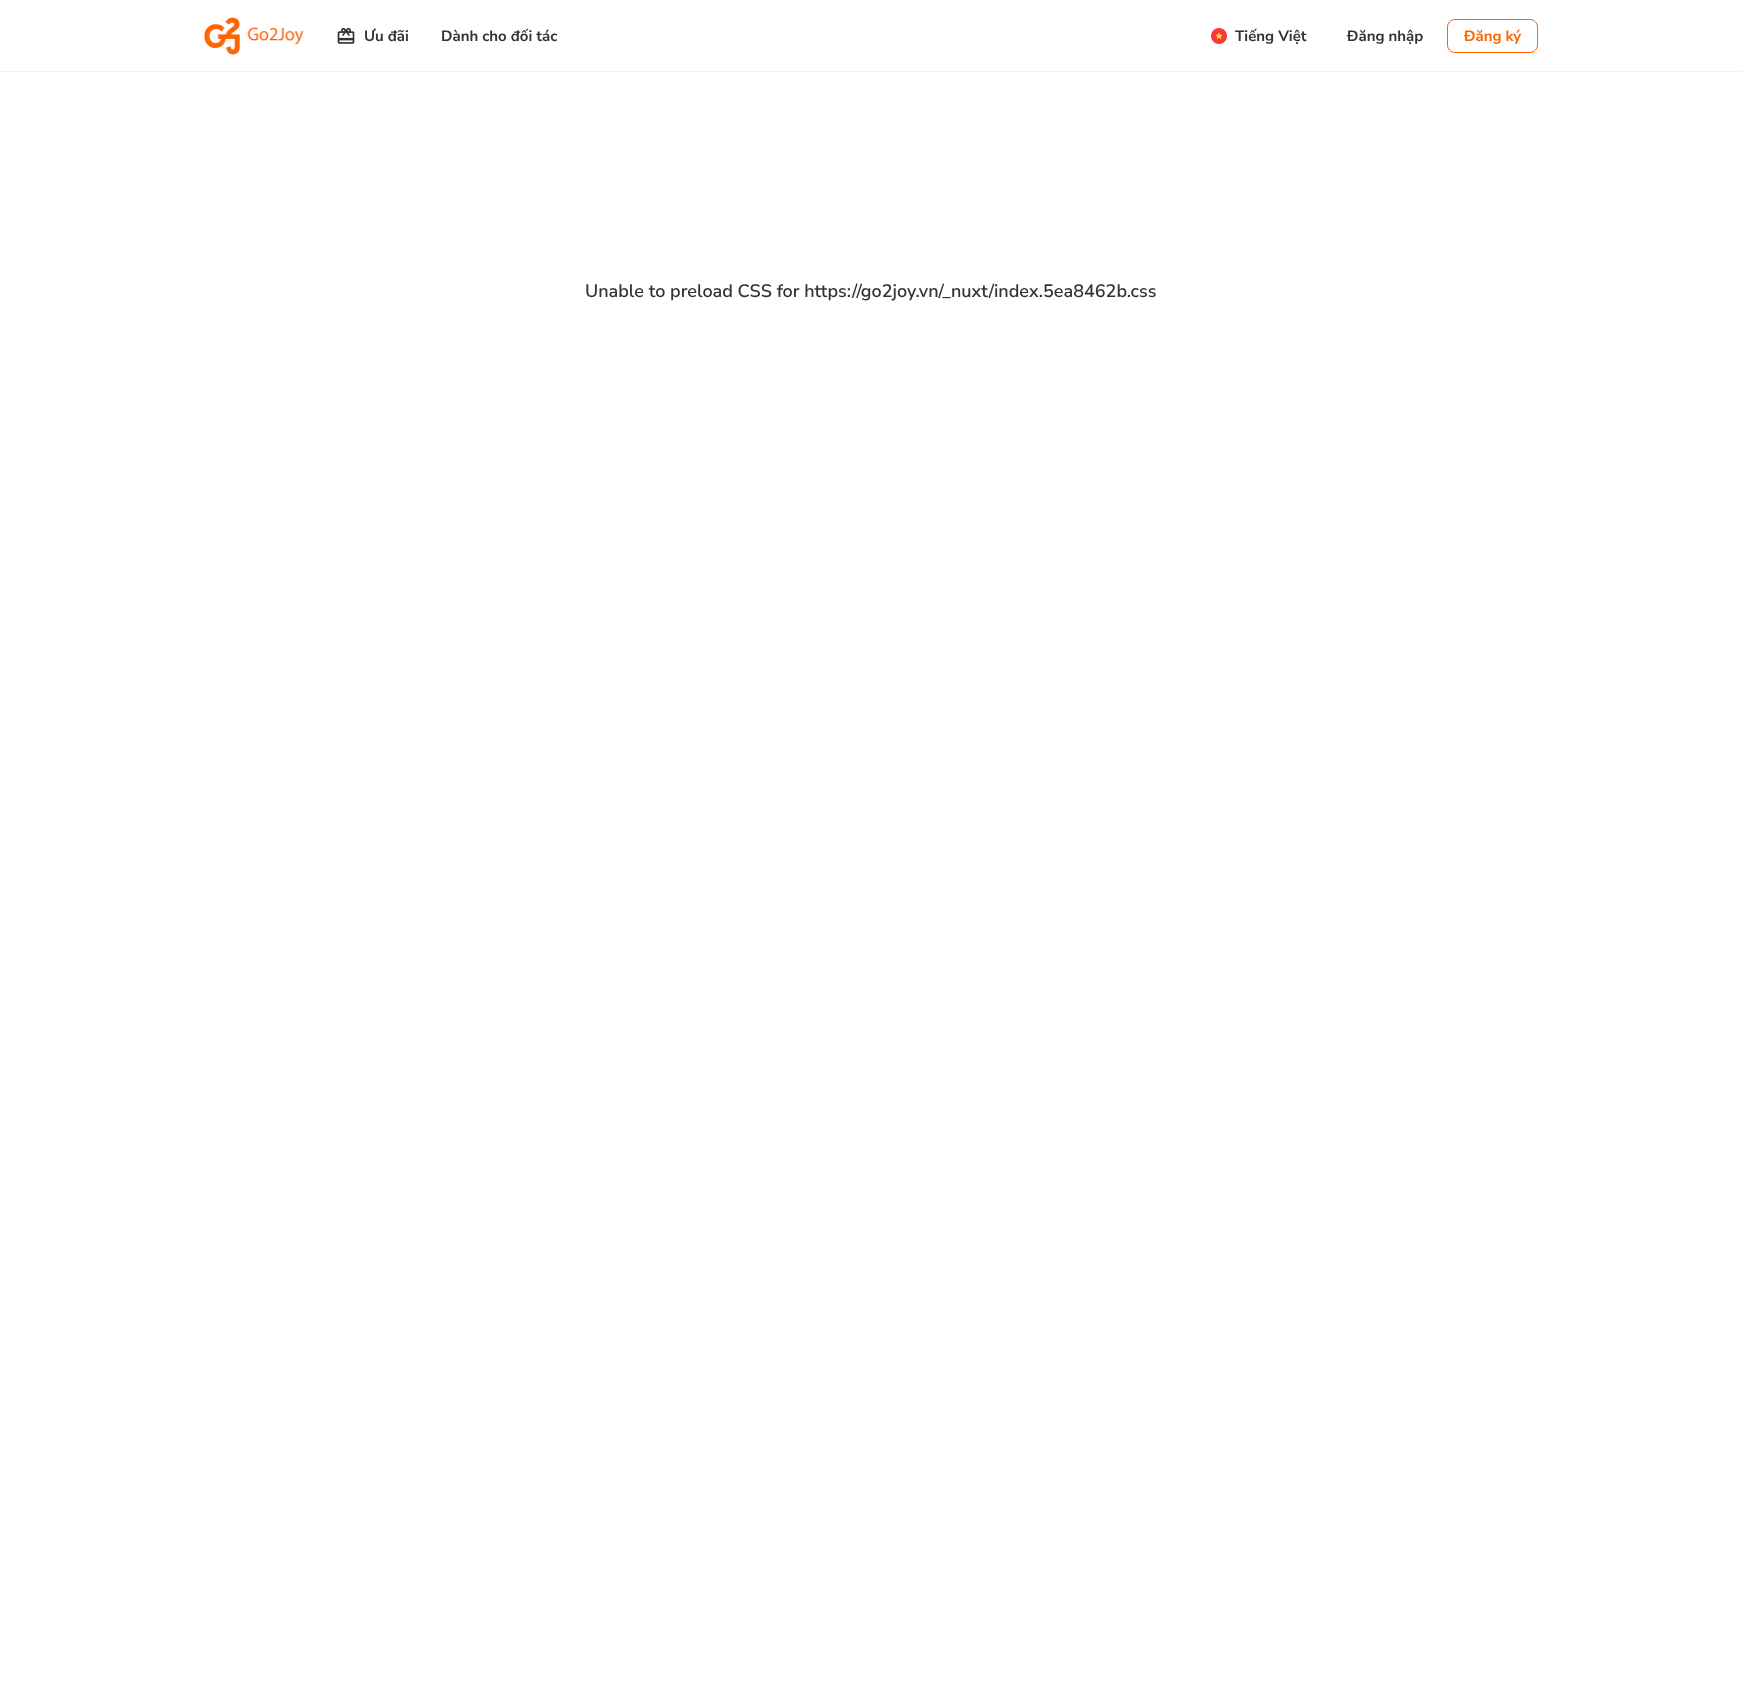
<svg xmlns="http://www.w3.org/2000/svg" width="1742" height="1682">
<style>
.a{font:bold 15px Nunito Sans;fill:#333}
.b{font:bold 15px Nunito Sans;fill:#ff6400}
.c{font:600 18px Nunito Sans;fill:#333}
</style>
<rect width="100%" height="100%" fill="#fff"/>
<path fill="#f2f2f7" d="M0 71h1742v1H0z"/>
<image href="1.png" x="204" y="17" width="100" height="38"/>
<image href="2.png" x="337" y="27" width="18" height="17"/>
<image href="3.png" x="1211" y="28" width="16" height="16"/>
<rect fill="none" stroke="#ff6400" x="1447.5" y="19.5" width="90" height="33" rx="7.5"/>
<text class="a" x="364" y="41">Ưu đãi</text>
<text class="a" x="441" y="41">Dành cho đối tác</text>
<text class="a" x="1235" y="41">Tiếng Việt</text>
<text class="a" x="1347" y="41">Đăng nhập</text>
<text class="b" x="1464" y="41">Đăng ký</text>
<text class="c" x="585" y="297">Unable to preload CSS for https://go2joy.vn/_nuxt/index.5ea8462b.css</text>
</svg>
